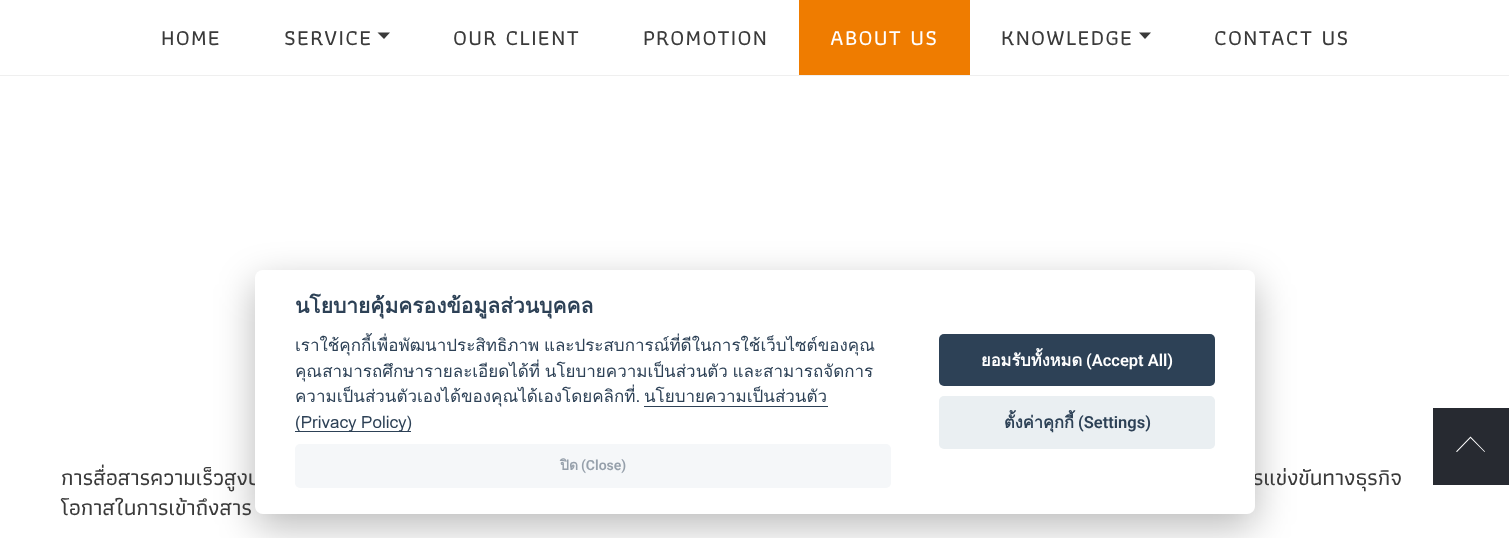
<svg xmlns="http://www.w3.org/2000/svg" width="1509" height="538">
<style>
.a{font:500 22.5px Athiti;letter-spacing:1.25px;fill:#3a3a3a}
.b{font:500 22.5px Athiti;letter-spacing:1.25px;fill:#fff}
.c{font:500 22.5px Athiti;fill:#3a3a3a}
.d{font:bold 21px Loma;fill:#2d4156}
.e{font:17px Loma;fill:#2d4156}
.f{font:bold 14px Loma;fill:#96a0ab}
.g{font:600 14px Roboto;fill:#96a0ab}
.h{font:bold 16.5px Loma;fill:#fff}
.i{font:600 16.5px Roboto;fill:#fff}
.j{font:bold 16.5px Loma;fill:#2d4156}
.k{font:600 16.5px Roboto;fill:#2d4156}
</style>
<rect width="100%" height="100%" fill="#fff"/>
<path fill="#efefef" d="M0 75h1509v1H0z"/>
<path fill="#3a3a3a" d="M377.5 32.5h12.5l-6 6.5z"/>
<path fill="#ef7c00" d="M799 0h171v75H799z"/>
<path fill="#3a3a3a" d="M1139 32.5h12l-6 6.5z"/>
<path fill="#272a31" d="M1433 408h76v77H1433z"/>
<path fill="#fff" d="M1484.5 452l-14-14l-13.5 14l-1-.5l14.5-15l14.5 15z"/>
<rect fill="#02020347" filter="blur(19px)" x="255" y="283" width="1000" height="243" rx="8"/>
<text class="a" x="161" y="45">HOME</text>
<text class="a" x="284" y="45">SERVICE</text>
<text class="a" x="453" y="45">OUR CLIENT</text>
<text class="a" x="643" y="45">PROMOTION</text>
<text class="b" x="830" y="45">ABOUT US</text>
<text class="a" x="1001" y="45">KNOWLEDGE</text>
<text class="a" x="1214" y="45">CONTACT US</text>
<text class="c" x="61" y="485">การสื่อสารความเร็วสูงบ</text>
<text class="c" x="1253" y="485">รแข่งขันทางธุรกิจ</text>
<text class="c" x="61" y="515">โอกาสในการเข้าถึงสาร</text>
<rect fill="#fff" x="255" y="270" width="1000" height="244" rx="8"/>
<text class="d" x="295" y="313">นโยบายคุ้มครองข้อมูลส่วนบุคคล</text>
<text class="e" x="295" y="351" word-spacing="-1">เราใช้คุกกี้เพื่อพัฒนาประสิทธิภาพ และประสบการณ์ที่ดีในการใช้เว็บไซต์ของคุณ</text>
<text class="e" x="295" y="377" word-spacing="-1">คุณสามารถศึกษารายละเอียดได้ที่ นโยบายความเป็นส่วนตัว และสามารถจัดการ</text>
<text class="e" x="295" y="402">ความเป็นส่วนตัวเองได้ของคุณได้เองโดยคลิกที่.</text>
<text class="e" x="644" y="402">นโยบายความเป็นส่วนตัว</text>
<path fill="#2d4156" d="M644 406h184v1H644z"/>
<path fill="#2d4156" d="M295 431h116v1H295z"/>
<text class="e" x="295" y="428" word-spacing="-1">(Privacy Policy)</text>
<rect fill="#f5f7f9" x="295" y="444" width="596" height="44" rx="5"/>
<text class="f" x="560" y="470">ปิด</text>
<text class="g" x="581" y="470">(Close)</text>
<rect fill="#2d4156" x="939" y="334" width="276" height="52" rx="5"/>
<text class="h" x="981" y="366">ยอมรับทั้งหมด</text>
<text class="i" x="1086" y="366">(Accept All)</text>
<rect fill="#eaeff2" x="939" y="396" width="276" height="53" rx="5"/>
<text class="j" x="1004" y="428">ตั้งค่าคุกกี้</text>
<text class="k" x="1078" y="428">(Settings)</text>
</svg>
